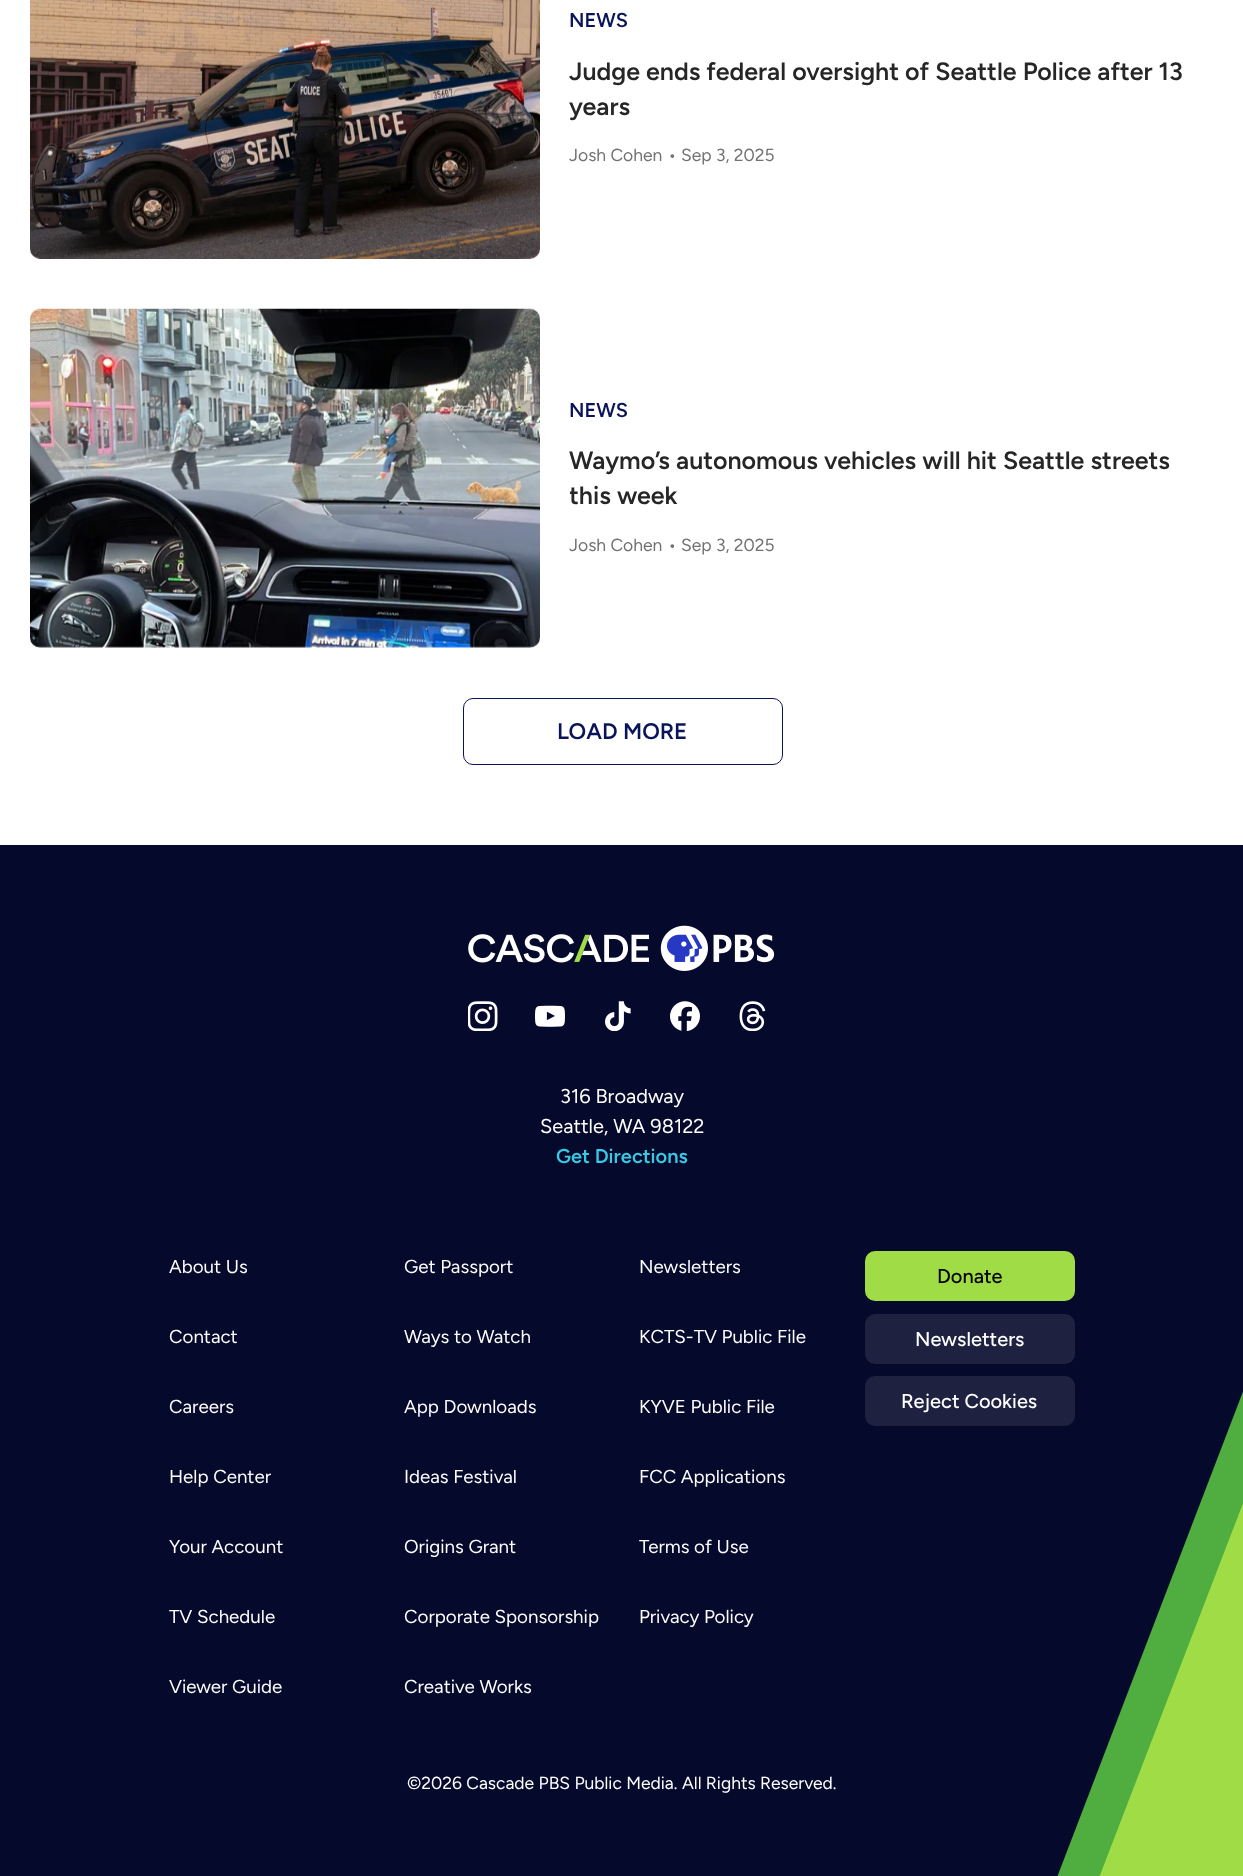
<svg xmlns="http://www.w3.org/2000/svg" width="1243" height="1876">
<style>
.a{font:600 20px Figtree;fill:#0a145a}
.b{font:600 25px Figtree;fill:#262626}
.c{font:17.5px Figtree;fill:#727272}
.d{font:600 22.5px Figtree;fill:#0a145a}
.e{font:20px Figtree;fill:#fff}
.f{font:600 20px Figtree;fill:#39c9e4}
.g{font:18.75px Figtree;fill:#fff}
.h{font:500 20px Figtree;fill:#000}
.i{font:500 20px Figtree;fill:#fff}
.j{font:17.5px Figtree;fill:#fff}
</style>
<defs>
<clipPath id="clip1"><path d="M570 309h644v339H570z"/></clipPath>
</defs>
<rect width="100%" height="100%" fill="#fff"/>
<image href="1.png" x="30" y="0" width="510" height="259"/>
<image href="2.png" x="30" y="308" width="510" height="340"/>
<rect fill="none" stroke="#0a145a" x="463.5" y="698.5" width="319" height="66" rx="9.5"/>
<path fill="#05092b" d="M0 845h1243v1031H0z"/>
<image href="3.png" x="468" y="925" width="307" height="46"/>
<image href="4.png" x="468" y="1001" width="30" height="30"/>
<image href="5.png" x="535" y="1005" width="30" height="22"/>
<image href="6.png" x="605" y="1001" width="26" height="30"/>
<image href="7.png" x="670" y="1001" width="30" height="30"/>
<image href="8.png" x="739" y="1001" width="27" height="30"/>
<rect fill="#9fdc45" x="865" y="1251" width="210" height="50" rx="10"/>
<rect fill="#1e2240" x="865" y="1314" width="210" height="50" rx="10"/>
<path fill="#50ad3f" d="M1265 1334l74 28l-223 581l-73-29z"/>
<rect fill="#1e2240" x="865" y="1376" width="210" height="50" rx="10"/>
<path fill="#9fdc45" d="M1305 1342l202 77l-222 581l-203-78z"/>
<text class="a" x="569" y="27">NEWS</text>
<text class="b" x="569" y="80">Judge ends federal oversight of Seattle Police after 13</text>
<text class="b" x="569" y="115">years</text>
<text class="c" x="569" y="161">Josh Cohen</text>
<text class="c" x="668" y="161">•</text>
<text class="c" x="681" y="161">Sep 3, 2025</text>
<text class="a" x="569" y="417">NEWS</text>
<text class="b" x="569" y="469">Waymo’s autonomous vehicles will hit Seattle streets</text>
<g clip-path="url(#clip1)">
<text class="b" x="569" y="504">this week</text>
</g>
<text class="c" x="569" y="551">Josh Cohen</text>
<text class="c" x="668" y="551">•</text>
<text class="c" x="681" y="551">Sep 3, 2025</text>
<text class="d" x="557" y="739">LOAD MORE</text>
<text class="e" x="560" y="1103">316 Broadway</text>
<text class="e" x="540" y="1133">Seattle, WA 98122</text>
<text class="f" x="556" y="1163">Get Directions</text>
<text class="g" x="169" y="1273">About Us</text>
<text class="g" x="404" y="1273">Get Passport</text>
<text class="g" x="639" y="1273">Newsletters</text>
<text class="g" x="169" y="1343">Contact</text>
<text class="g" x="404" y="1343">Ways to Watch</text>
<text class="g" x="639" y="1343">KCTS-TV Public File</text>
<text class="g" x="169" y="1413">Careers</text>
<text class="g" x="404" y="1413">App Downloads</text>
<text class="g" x="639" y="1413">KYVE Public File</text>
<text class="g" x="169" y="1483">Help Center</text>
<text class="g" x="404" y="1483">Ideas Festival</text>
<text class="g" x="639" y="1483">FCC Applications</text>
<text class="g" x="169" y="1553">Your Account</text>
<text class="g" x="404" y="1553">Origins Grant</text>
<text class="g" x="639" y="1553">Terms of Use</text>
<text class="g" x="169" y="1623">TV Schedule</text>
<text class="g" x="404" y="1623">Corporate Sponsorship</text>
<text class="g" x="639" y="1623">Privacy Policy</text>
<text class="g" x="169" y="1693">Viewer Guide</text>
<text class="g" x="404" y="1693">Creative Works</text>
<text class="h" x="937" y="1283">Donate</text>
<text class="i" x="915" y="1346">Newsletters</text>
<text class="i" x="901" y="1408">Reject Cookies</text>
<text class="j" x="407" y="1789">©2026 Cascade PBS Public Media.</text>
<text class="j" x="682" y="1789">All Rights Reserved.</text>
</svg>
